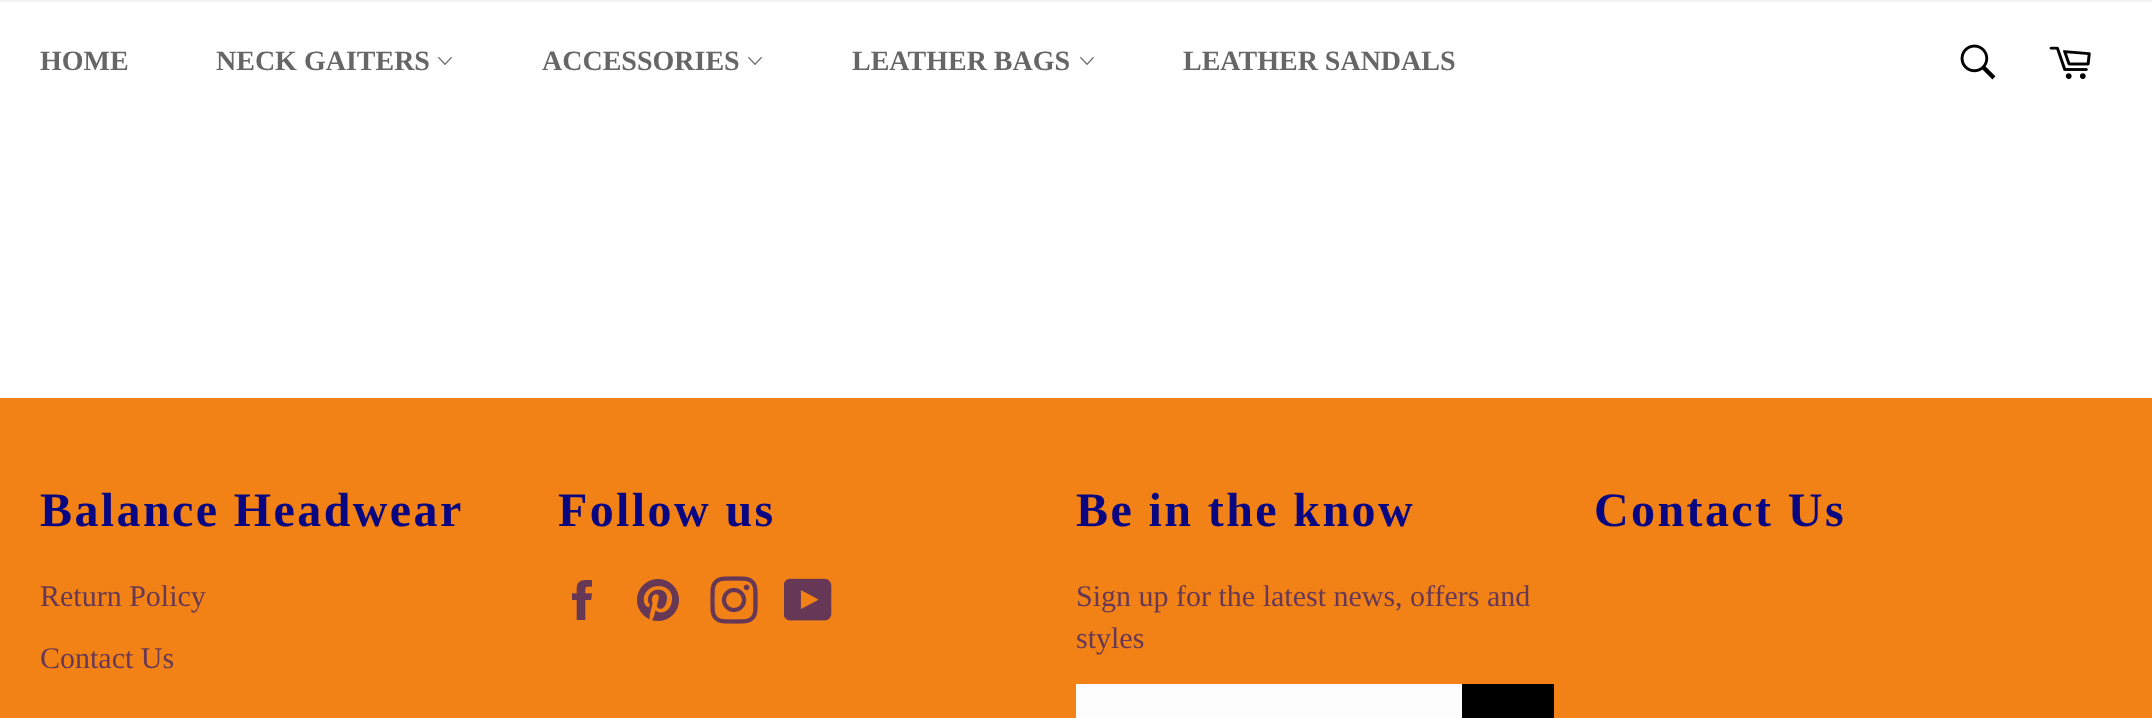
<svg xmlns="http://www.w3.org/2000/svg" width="2152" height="718">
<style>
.a{font:bold 28px Liberation Serif;fill:#666}
.b{font:bold 48px Liberation Serif;letter-spacing:2.4px;fill:#080681}
.c{font:30px Liberation Serif;fill:#663856}
</style>
<rect width="100%" height="100%" fill="#fff"/>
<path fill="#f2f2f2" d="M0 0h2152v2H0z"/>
<image href="1.png" x="438" y="56" width="14" height="9"/>
<image href="1.png" x="748" y="56" width="14" height="9"/>
<image href="1.png" x="1080" y="56" width="14" height="9"/>
<image href="2.png" x="1960" y="44" width="36" height="36"/>
<image href="3.png" x="2049" y="46" width="42" height="33"/>
<path fill="#f28216" d="M0 398h2152v320H0z"/>
<image href="4.png" x="572" y="580" width="20" height="40"/>
<image href="5.png" x="637" y="579" width="42" height="42"/>
<image href="6.png" x="710" y="576" width="48" height="48"/>
<image href="7.png" x="784" y="578" width="48" height="43"/>
<path fill="#fdfdfd" d="M1076 684h386v34H1076z"/>
<path fill="#000" d="M1462 684h92v34H1462z"/>
<text class="a" x="40" y="70">HOME</text>
<text class="a" x="216" y="70">NECK GAITERS</text>
<text class="a" x="542" y="70">ACCESSORIES</text>
<text class="a" x="852" y="70">LEATHER BAGS</text>
<text class="a" x="1183" y="70">LEATHER SANDALS</text>
<text class="b" x="40" y="526">Balance Headwear</text>
<text class="c" x="40" y="606">Return Policy</text>
<text class="c" x="40" y="668">Contact Us</text>
<text class="b" x="558" y="526">Follow us</text>
<text class="b" x="1076" y="526">Be in the know</text>
<text class="c" x="1076" y="606">Sign up for the latest news, offers and</text>
<text class="c" x="1076" y="648">styles</text>
<text class="b" x="1594" y="526">Contact Us</text>
</svg>
